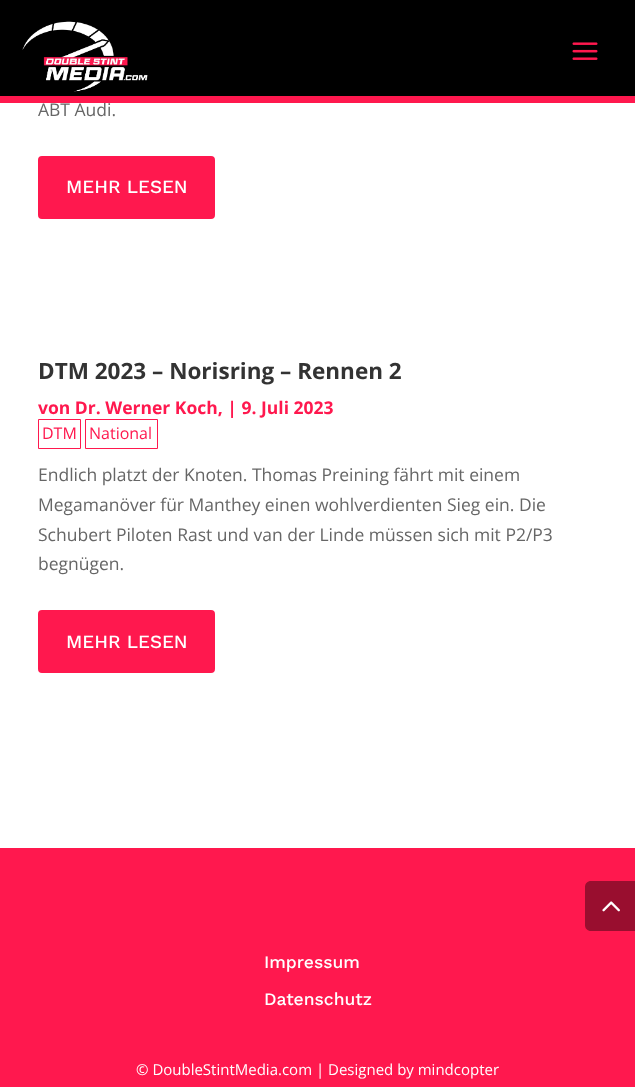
<svg xmlns="http://www.w3.org/2000/svg" width="635" height="1087">
<style>
.a{font:17.5px Open Sans;fill:#666}
.b{font:500 18.75px Work Sans;fill:#fff}
.c{font:bold 22.5px Open Sans;fill:#333}
.d{font:bold 17.5px Open Sans;fill:#ff184e}
.e{font:16px Open Sans;fill:#ff184e}
.f{font:500 17.5px Work Sans;fill:#fff}
.g{font:15px Open Sans;fill:#fff}
</style>
<rect width="100%" height="100%" fill="#fff"/>
<path fill="#000" d="M0 0h635v96H0z"/>
<image href="1.png" x="22" y="21" width="126" height="71"/>
<image href="2.png" x="572" y="42" width="26" height="18"/>
<rect fill="#ff184e" stroke="#ff184e" stroke-width="3" x="39.5" y="157.5" width="174" height="60" rx="2.5"/>
<path fill="none" stroke="#ff184e" d="M38.5 419.5h42v29H38.5z"/>
<path fill="none" stroke="#ff184e" d="M85.5 419.5h72v29H85.5z"/>
<rect fill="#ff184e" stroke="#ff184e" stroke-width="3" x="39.5" y="611.5" width="174" height="60" rx="2.5"/>
<path fill="#ff184e" d="M0 848h635v239H0z"/>
<path fill="#990e2f" d="M591 881h44v50h-44c-3.5 0-6-2.5-6-6v-38c0-3.5 2.5-6 6-6z"/>
<image href="3.png" x="602" y="901" width="18" height="11"/>
<text class="a" x="38" y="116">ABT Audi.</text>
<path fill="#ff184e" d="M0 96h635v7H0z"/>
<text class="b" x="66" y="193">MEHR LESEN</text>
<text class="c" x="38" y="379">DTM 2023 – Norisring – Rennen 2</text>
<text class="d" x="38" y="414">von Dr. Werner Koch, | 9. Juli 2023</text>
<text class="e" x="42" y="439">DTM</text>
<text class="e" x="89" y="439">National</text>
<text class="a" x="38" y="481">Endlich platzt der Knoten. Thomas Preining fährt mit einem</text>
<text class="a" x="38" y="511">Megamanöver für Manthey einen wohlverdienten Sieg ein. Die</text>
<text class="a" x="38" y="541">Schubert Piloten Rast und van der Linde müssen sich mit P2/P3</text>
<text class="a" x="38" y="570">begnügen.</text>
<text class="b" x="66" y="648">MEHR LESEN</text>
<text class="f" x="264" y="968">Impressum</text>
<text class="f" x="264" y="1005">Datenschutz</text>
<text class="g" x="136" y="1075">© DoubleStintMedia.com | Designed by mindcopter</text>
</svg>
